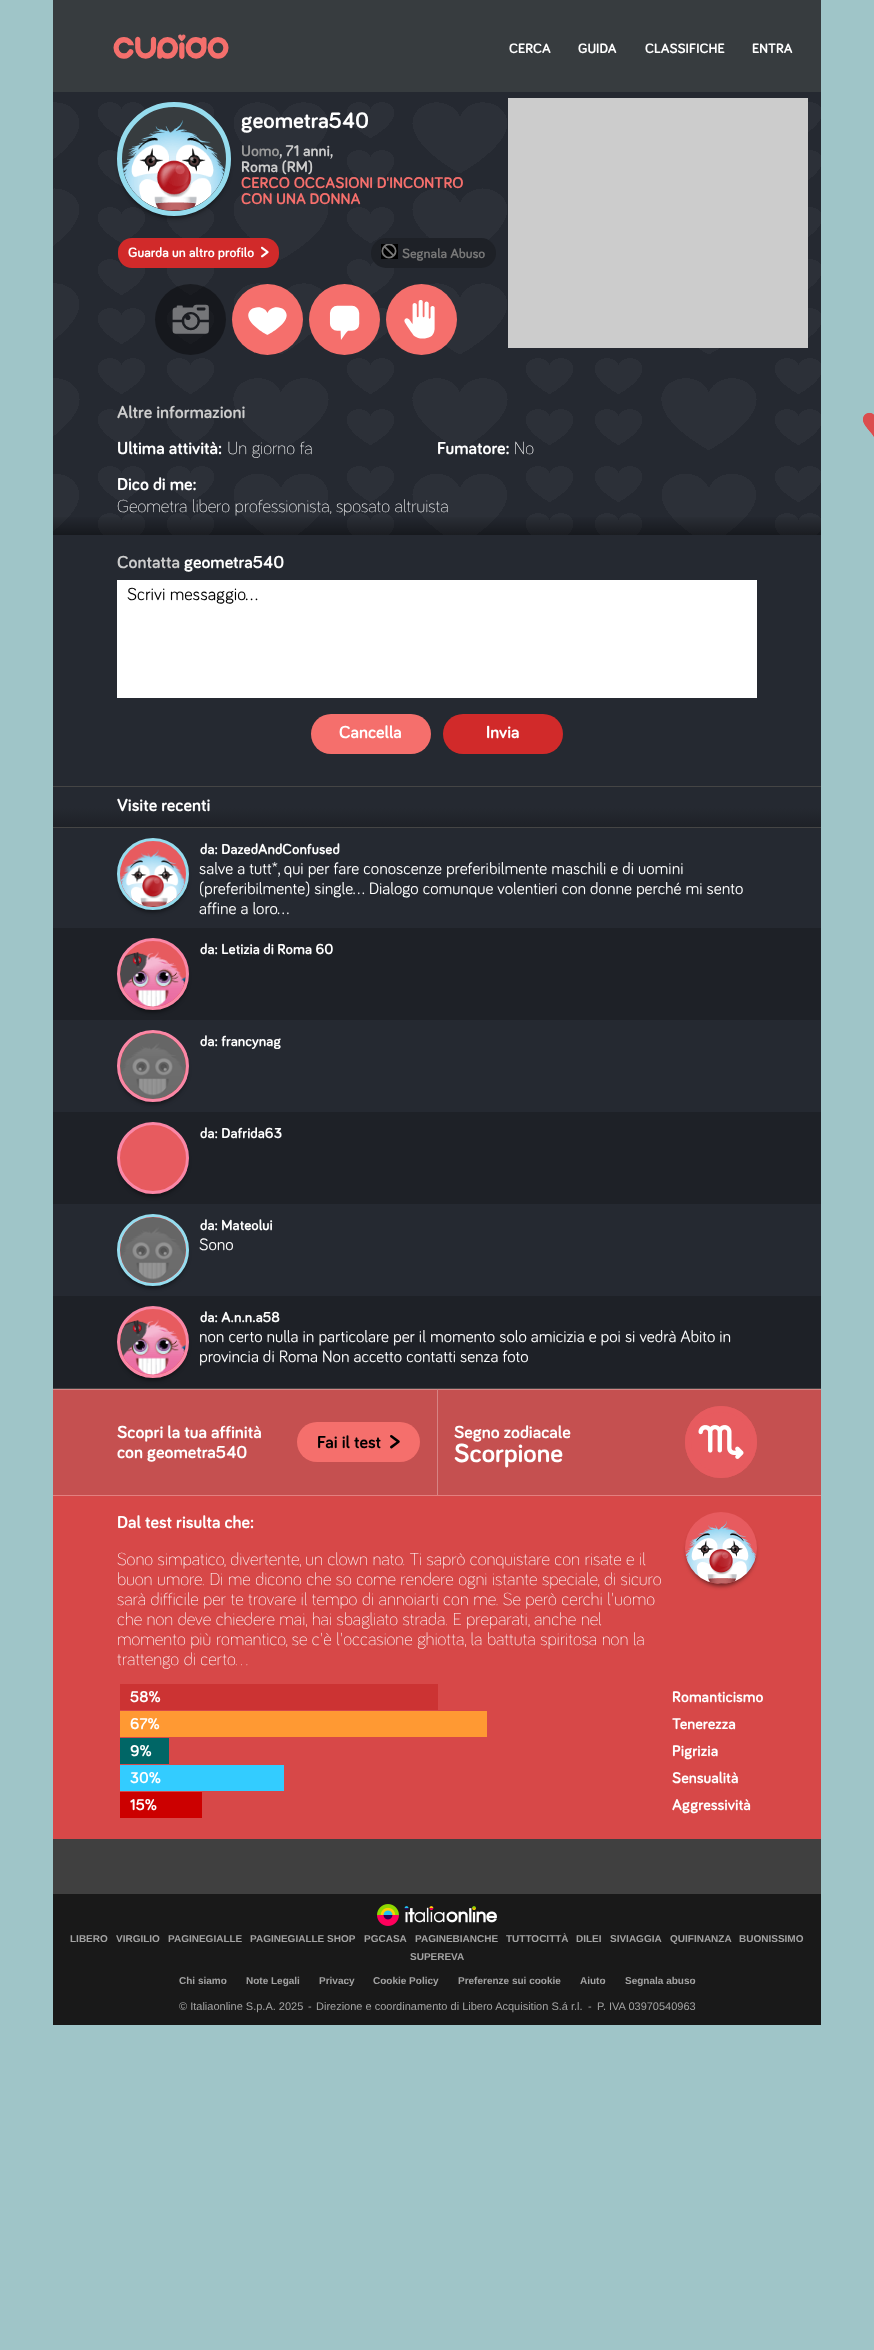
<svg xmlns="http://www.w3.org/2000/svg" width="874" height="2350">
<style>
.a{font:bold 14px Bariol;fill:#fff}
.b{font:bold 23px Bariol;fill:#fff}
.c{font:bold 16px Bariol;fill:#999}
.d{font:bold 16px Bariol;fill:#ccc}
.e{font:bold 16px Bariol;fill:#f56f6c}
.f{font:bold 21px Bariol;fill:#fff}
.g{font:bold 14px Bariol;fill:#787878}
.h{font:bold 18px Bariol;fill:#ccc}
.i{font:bold 18px Bariol;fill:#fff}
.j{font:300 18px Bariol;fill:#fff}
.k{font:18px Bariol;fill:#000}
.l{font:bold 15px Bariol;fill:#fff}
.m{font:17px Bariol;fill:#fff}
.n{font:bold 18px Bariol;fill:#000}
.o{font:bold 27px Bariol;fill:#000}
.p{font:bold 27px Bariol;fill:#fff}
.q{font:bold 16px Bariol;fill:#fff}
.r{font:bold 10px Liberation Sans;fill:#a3a3a3}
.s{font:11px Liberation Sans;fill:#a3a3a3}
</style>
<defs>
<linearGradient id="g1" gradientUnits="userSpaceOnUse" x1="437" y1="515" x2="437" y2="535"><stop offset="0" stop-color="#000" stop-opacity="0"/><stop offset="1" stop-color="#000" stop-opacity="0.4"/></linearGradient>
<linearGradient id="g2" gradientUnits="userSpaceOnUse" x1="437" y1="787" x2="437" y2="827"><stop offset="0.53" stop-color="#252931"/><stop offset="1" stop-color="#1e2127"/></linearGradient>
</defs>
<rect width="100%" height="100%" fill="#9fc5c8"/>
<image href="1.png" x="863" y="412" width="11" height="25"/>
<path fill="#373c3f" d="M53 0h768v92H53z"/>
<image href="2.png" x="113" y="34" width="116" height="25"/>
<image href="3.png" x="53" y="92" width="768" height="443"/>
<rect fill="#00000080" filter="blur(2px)" x="119" y="108" width="110" height="110" rx="55"/>
<circle fill="#373c3f" stroke="#95dcee" stroke-width="5" cx="174" cy="159" r="54.5"/>
<image href="4.png" x="122" y="120" width="103" height="91"/>
<rect fill="#d12a2a" x="118" y="238" width="161" height="30" rx="14"/>
<rect fill="#1e2127" x="371" y="238" width="125" height="30" rx="15"/>
<path fill="#787878" d="M381 244h16v15H381z"/>
<image href="5.png" x="381" y="244" width="17" height="15"/>
<path fill="#ccc" d="M508 98h300v250H508z"/>
<circle fill="#00000066" cx="190.5" cy="319.5" r="35.5"/>
<image href="6.png" x="172" y="304" width="37" height="30"/>
<circle fill="#f56f6c" cx="267.5" cy="319.5" r="35.5"/>
<image href="7.png" x="248" y="307" width="39" height="28"/>
<circle fill="#f56f6c" cx="344.5" cy="319.5" r="35.5"/>
<image href="8.png" x="329" y="305" width="31" height="35"/>
<circle fill="#f56f6c" cx="421.5" cy="319.5" r="35.5"/>
<image href="9.png" x="404" y="300" width="31" height="39"/>
<path fill="url(#g1)" d="M53 517h768v18H53z"/>
<path fill="#252931" d="M53 535h768v251H53z"/>
<path fill="#fff" d="M117 580h640v118H117z"/>
<rect fill="#f56f6c" x="311" y="714" width="120" height="40" rx="20"/>
<rect fill="#d12a2a" x="443" y="714" width="120" height="40" rx="20"/>
<path fill="url(#g2)" d="M53 787h768v40H53z"/>
<path fill="#454545" d="M53 786h768v1H53z"/>
<path fill="#454545" d="M53 827h768v1H53z"/>
<path fill="#454545" d="M53 1388h768v1H53z"/>
<path fill="#252931" d="M53 828h768v100H53z"/>
<rect fill="#00000080" filter="blur(2px)" x="119" y="844" width="68" height="68" rx="34"/>
<circle fill="#e75b5f" stroke="#95dcee" stroke-width="3" cx="153" cy="874" r="34.5"/>
<image href="10.png" x="120" y="849" width="65" height="58"/>
<path fill="#1e2127" d="M53 928h768v92H53z"/>
<rect fill="#00000080" filter="blur(2px)" x="119" y="944" width="68" height="68" rx="34"/>
<circle fill="#e75b5f" stroke="#fa87a6" stroke-width="3" cx="153" cy="974" r="34.5"/>
<image href="11.png" x="120" y="951" width="66" height="56"/>
<path fill="#252931" d="M53 1020h768v92H53z"/>
<rect fill="#00000080" filter="blur(2px)" x="119" y="1036" width="68" height="68" rx="34"/>
<circle fill="#e75b5f" stroke="#fa87a6" stroke-width="3" cx="153" cy="1066" r="34.5"/>
<image href="12.png" x="120" y="1033" width="66" height="66"/>
<path fill="#1e2127" d="M53 1112h768v92H53z"/>
<rect fill="#00000080" filter="blur(2px)" x="119" y="1128" width="68" height="68" rx="34"/>
<circle fill="#e75b5f" stroke="#fa87a6" stroke-width="3" cx="153" cy="1158" r="34.5"/>
<path fill="#252931" d="M53 1204h768v92H53z"/>
<rect fill="#00000080" filter="blur(2px)" x="119" y="1220" width="68" height="68" rx="34"/>
<circle fill="#e75b5f" stroke="#95dcee" stroke-width="3" cx="153" cy="1250" r="34.5"/>
<image href="13.png" x="120" y="1217" width="66" height="66"/>
<path fill="#1e2127" d="M53 1296h768v92H53z"/>
<rect fill="#00000080" filter="blur(2px)" x="119" y="1312" width="68" height="68" rx="34"/>
<circle fill="#e75b5f" stroke="#fa87a6" stroke-width="3" cx="153" cy="1342" r="34.5"/>
<image href="11.png" x="120" y="1319" width="66" height="56"/>
<path fill="#c55050" d="M53 1390h384v105H53z"/>
<path fill="#d68585" d="M53 1389h384v1H53z"/>
<rect fill="#f56f6c" x="297" y="1422" width="123" height="40" rx="20"/>
<path fill="#c55050" d="M437 1389h384v106H437z"/>
<path fill="#d68585" d="M437 1389h384v1h-383z"/>
<path fill="#ffffff4d" d="M437 1495v-106l1 1v105z"/>
<circle fill="#e75b5f" cx="721" cy="1442" r="36"/>
<image href="14.png" x="698" y="1425" width="46" height="34"/>
<circle fill="none" stroke="#e75b5f" stroke-width="6" cx="721" cy="1442" r="33"/>
<path fill="#d74848" d="M53 1496h768v343H53z"/>
<path fill="#e37f7f" d="M53 1495h768v1H53z"/>
<rect fill="#00000080" filter="blur(2px)" x="687" y="1518" width="68" height="68" rx="34"/>
<circle fill="#e75b5f" cx="721" cy="1548" r="36"/>
<image href="15.png" x="685" y="1521" width="72" height="63"/>
<path fill="#c33" d="M120 1684h318v26H120z"/>
<path fill="#f93" d="M120 1711h367v26H120z"/>
<path fill="#066" d="M120 1738h49v26H120z"/>
<path fill="#3cf" d="M120 1765h164v26H120z"/>
<path fill="#c00" d="M120 1792h82v26H120z"/>
<path fill="#404040" d="M53 1839h768v55H53z"/>
<path fill="#191919" d="M53 1894h768v131H53z"/>
<image href="16.png" x="377" y="1904" width="120" height="22"/>
<text class="a" x="509" y="53">CERCA</text>
<text class="a" x="578" y="53">GUIDA</text>
<text class="a" x="645" y="53">CLASSIFICHE</text>
<text class="a" x="752" y="53">ENTRA</text>
<text class="b" x="241" y="128">geometra540</text>
<text class="c" x="241" y="156">Uomo</text>
<text class="d" x="279" y="156">, 71 anni,</text>
<text class="d" x="241" y="172">Roma (RM)</text>
<text class="e" x="241" y="188">CERCO OCCASIONI D'INCONTRO</text>
<text class="e" x="241" y="204">CON UNA DONNA</text>
<text class="a" x="128" y="257">Guarda un altro profilo</text>
<text class="f" x="261" y="257">&gt;</text>
<text class="g" x="402" y="258">Segnala Abuso</text>
<text class="h" x="117" y="418">Altre informazioni</text>
<text class="i" x="117" y="454">Ultima attività:</text>
<text class="j" x="227" y="454">Un giorno fa</text>
<text class="i" x="437" y="454">Fumatore:</text>
<text class="j" x="514" y="454">No</text>
<text class="i" x="117" y="490">Dico di me:</text>
<text class="j" x="117" y="512">Geometra libero professionista, sposato altruista</text>
<text class="h" x="117" y="568">Contatta</text>
<text class="i" x="184" y="568">geometra540</text>
<text class="k" x="127" y="600">Scrivi messaggio...</text>
<text class="i" x="339" y="738">Cancella</text>
<text class="i" x="486" y="738">Invia</text>
<text class="i" x="117" y="811">Visite recenti</text>
<text class="l" x="200" y="854">da: DazedAndConfused</text>
<text class="m" x="199" y="874">salve a tutt*, qui per fare conoscenze preferibilmente maschili e di uomini</text>
<text class="m" x="199" y="894">(preferibilmente) single... Dialogo comunque volentieri con donne perché mi sento</text>
<text class="m" x="199" y="914">affine a loro…</text>
<text class="l" x="200" y="954">da: Letizia di Roma 60</text>
<text class="l" x="200" y="1046">da: francynag</text>
<text class="l" x="200" y="1138">da: Dafrida63</text>
<text class="l" x="200" y="1230">da: Mateolui</text>
<text class="m" x="199" y="1250">Sono</text>
<text class="l" x="200" y="1322">da: A.n.n.a58</text>
<text class="m" x="199" y="1342">non certo nulla in particolare per il momento solo amicizia e poi si vedrà Abito in</text>
<text class="m" x="199" y="1362">provincia di Roma Non accetto contatti senza foto</text>
<text class="i" x="117" y="1438">Scopri la tua affinità</text>
<text class="i" x="117" y="1458">con geometra540</text>
<text class="n" x="317" y="1448">Fai il test</text>
<text class="o" x="390" y="1448">&gt;</text>
<text class="i" x="454" y="1438">Segno zodiacale</text>
<text class="p" x="454" y="1462">Scorpione</text>
<text class="i" x="117" y="1528">Dal test risulta che:</text>
<text class="j" x="117" y="1565">Sono simpatico, divertente, un clown nato. Ti saprò conquistare con risate e il</text>
<text class="j" x="117" y="1585">buon umore. Di me dicono che so come rendere ogni istante speciale, di sicuro</text>
<text class="j" x="117" y="1605">sarà difficile per te trovare il tempo di annoiarti con me. Se però cerchi l'uomo</text>
<text class="j" x="117" y="1625">che non deve chiedere mai, hai sbagliato strada. E preparati, anche nel</text>
<text class="j" x="117" y="1645">momento più romantico, se c'è l'occasione ghiotta, la battuta spiritosa non la</text>
<text class="j" x="117" y="1665">trattengo di certo...</text>
<text class="q" x="130" y="1702">58%</text>
<text class="q" x="672" y="1702">Romanticismo</text>
<text class="q" x="130" y="1729">67%</text>
<text class="q" x="672" y="1729">Tenerezza</text>
<text class="q" x="130" y="1756">9%</text>
<text class="q" x="672" y="1756">Pigrizia</text>
<text class="q" x="130" y="1783">30%</text>
<text class="q" x="672" y="1783">Sensualità</text>
<text class="q" x="130" y="1810">15%</text>
<text class="q" x="672" y="1810">Aggressività</text>
<text class="r" x="70" y="1942">LIBERO</text>
<text class="r" x="116" y="1942">VIRGILIO</text>
<text class="r" x="168" y="1942">PAGINEGIALLE</text>
<text class="r" x="250" y="1942">PAGINEGIALLE SHOP</text>
<text class="r" x="364" y="1942">PGCASA</text>
<text class="r" x="415" y="1942">PAGINEBIANCHE</text>
<text class="r" x="506" y="1942">TUTTOCITTÀ</text>
<text class="r" x="576" y="1942">DILEI</text>
<text class="r" x="610" y="1942">SIVIAGGIA</text>
<text class="r" x="670" y="1942">QUIFINANZA</text>
<text class="r" x="739" y="1942">BUONISSIMO</text>
<text class="r" x="410" y="1960">SUPEREVA</text>
<text class="r" x="179" y="1984">Chi siamo</text>
<text class="r" x="246" y="1984">Note Legali</text>
<text class="r" x="319" y="1984">Privacy</text>
<text class="r" x="373" y="1984">Cookie Policy</text>
<text class="r" x="458" y="1984">Preferenze sui cookie</text>
<text class="r" x="580" y="1984">Aiuto</text>
<text class="r" x="625" y="1984">Segnala abuso</text>
<text class="s" x="179" y="2010">© Italiaonline S.p.A. 2025</text>
<text class="s" x="308" y="2010">-</text>
<text class="s" x="316" y="2010">Direzione e coordinamento di Libero Acquisition S.á r.l.</text>
<text class="s" x="588" y="2010">-</text>
<text class="s" x="597" y="2010">P. IVA 03970540963</text>
</svg>
